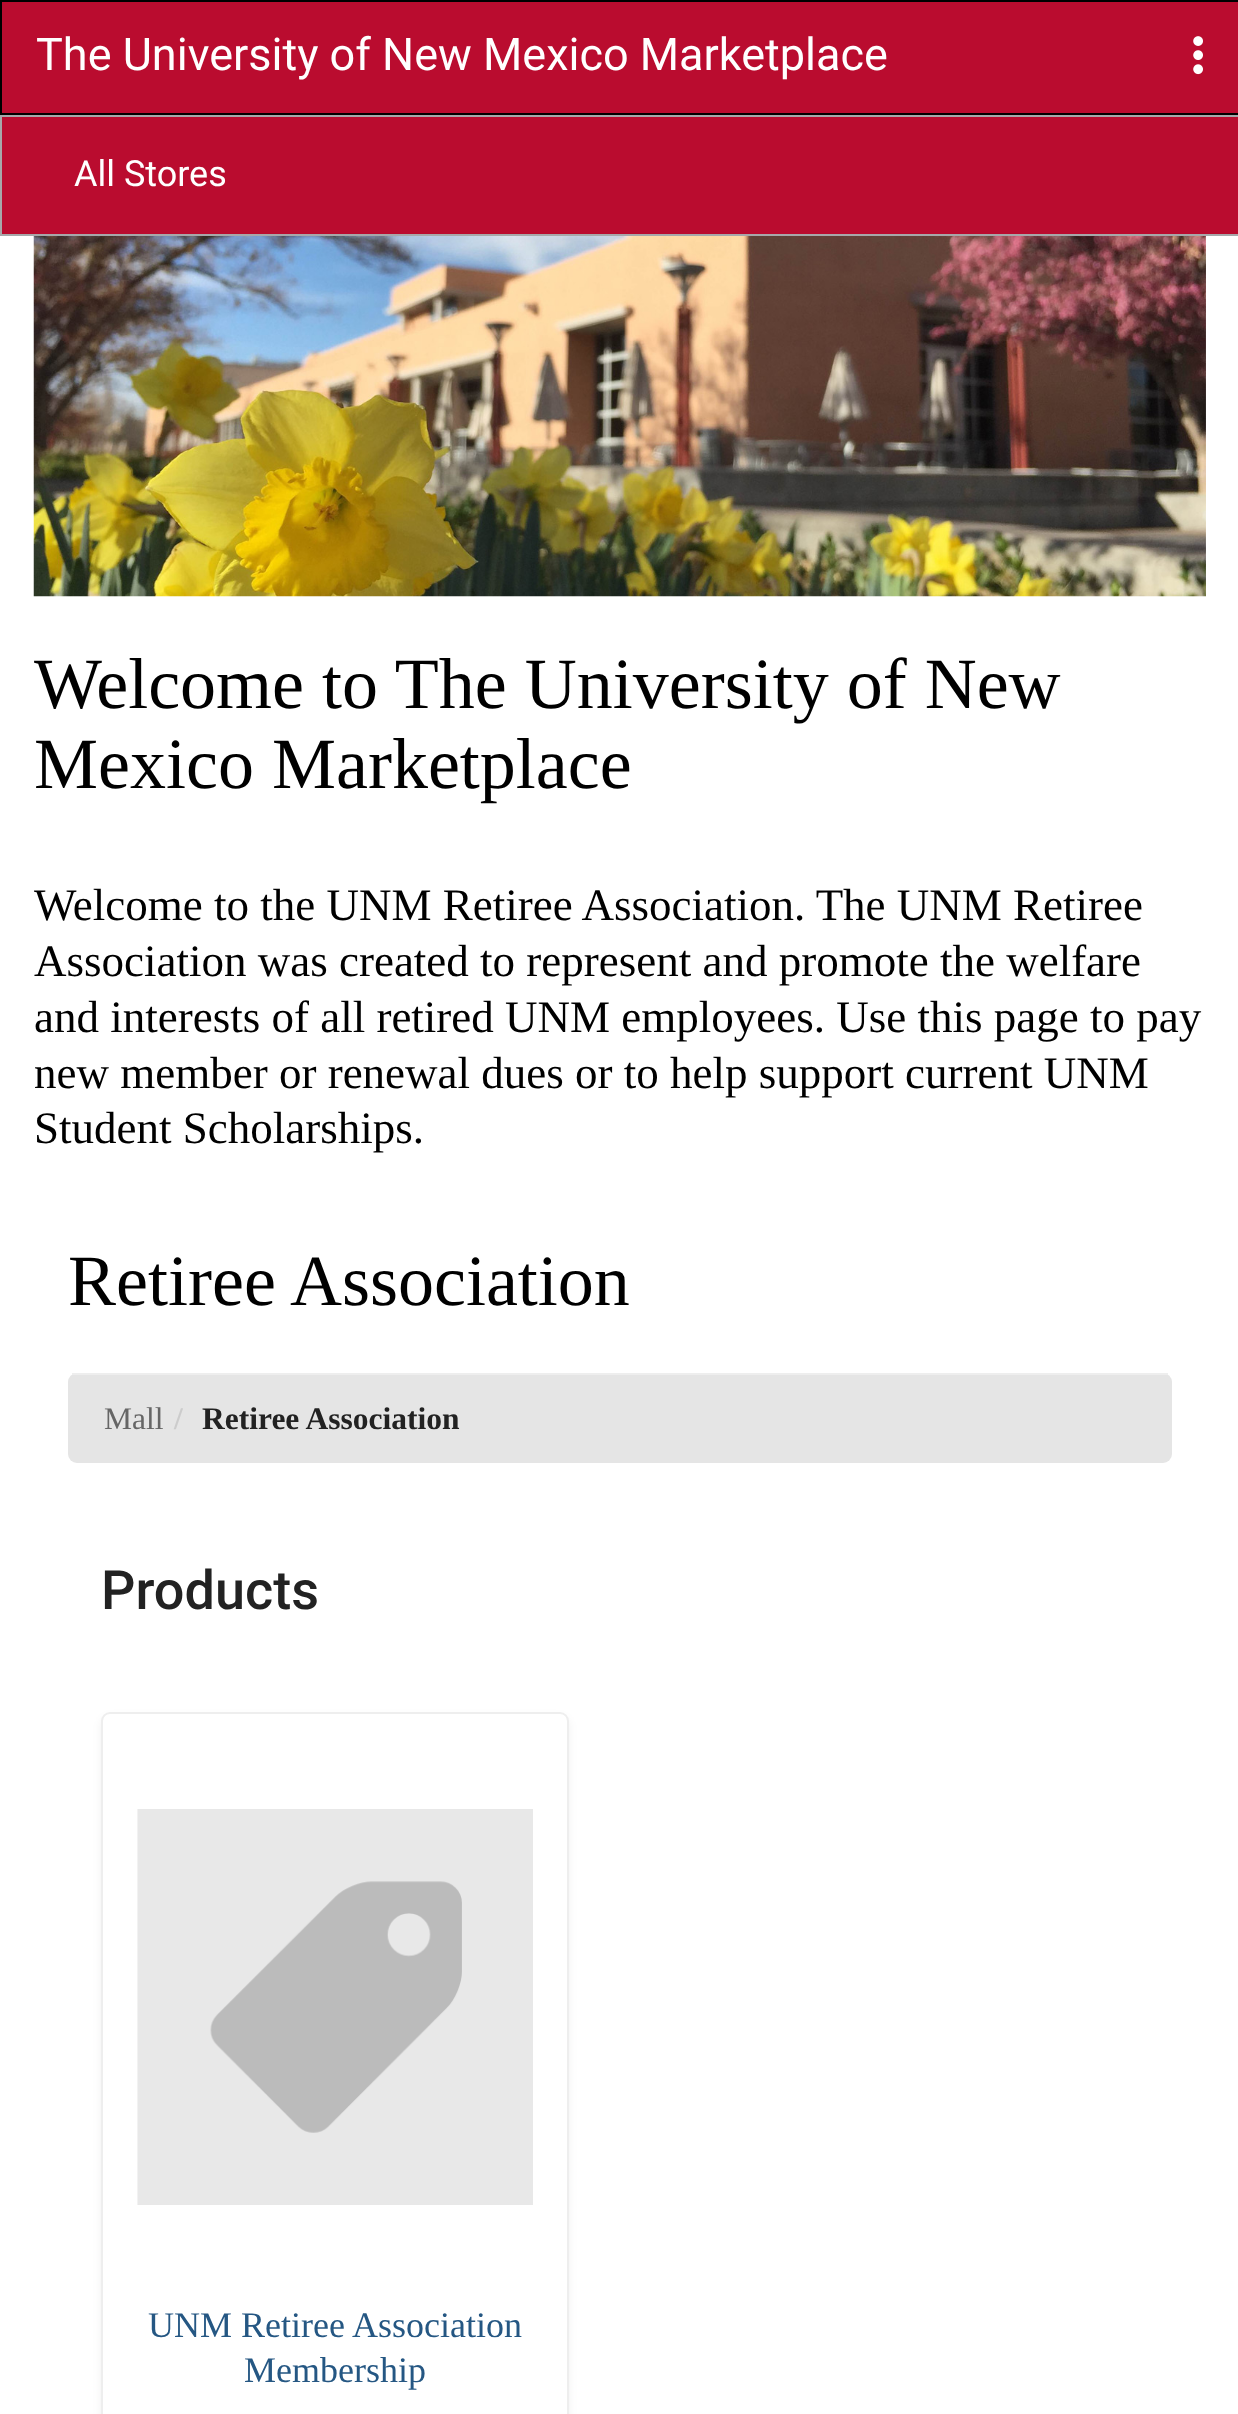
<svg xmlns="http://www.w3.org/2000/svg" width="1238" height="2414">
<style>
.a{font:45px Roboto;fill:#fff}
.b{font:36px Roboto;fill:#fff}
.c{font:72px Liberation Serif;fill:#000}
.d{font:45px Liberation Serif;fill:#000}
.e{font:31.5px Liberation Serif;fill:#666}
.f{font:bold 31.5px Liberation Serif;fill:#ccc}
.g{font:bold 31.5px Liberation Serif;fill:#222}
.h{font:500 54px Roboto;fill:#222}
.i{font:36px Liberation Serif;fill:#255783}
</style>
<rect width="100%" height="100%" fill="#fff"/>
<path fill="#ba0c2f" stroke="#000" stroke-width="2" d="M1 1h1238v113H1z"/>
<image href="1.png" x="1193" y="36" width="10" height="39"/>
<path fill="#ba0c2f" stroke="#a7a8aa" stroke-width="2" d="M1 116h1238v119H1z"/>
<image href="2.png" x="33" y="236" width="1173" height="361"/>
<rect fill="#e5e5e5" x="68" y="1373" width="1104" height="90" rx="9"/>
<path fill="#eee" d="M72 1373h1096v2H72z"/>
<rect fill="#0000000f" filter="blur(4.5px)" x="101" y="1717" width="468" height="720" rx="9"/>
<path fill="#fff" d="M110 1712h450c5 0 9 4 9 9v693h-468v-693c0-5 4-9 9-9z"/>
<rect fill="none" stroke="#eee" stroke-width="2" x="102" y="1713" width="466" height="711" rx="8"/>
<image href="3.png" x="137" y="1809" width="396" height="396"/>
<text class="a" x="36" y="70">The University of New Mexico Marketplace</text>
<text class="b" x="74" y="186">All Stores</text>
<text class="c" x="34" y="708">Welcome to The University of New</text>
<text class="c" x="34" y="788">Mexico Marketplace</text>
<text class="d" x="34" y="920">Welcome to the UNM Retiree Association. The UNM Retiree</text>
<text class="d" x="34" y="976">Association was created to represent and promote the welfare</text>
<text class="d" x="34" y="1032">and interests of all retired UNM employees. Use this page to pay</text>
<text class="d" x="34" y="1088">new member or renewal dues or to help support current UNM</text>
<text class="d" x="34" y="1143">Student Scholarships.</text>
<text class="c" x="68" y="1305">Retiree Association</text>
<text class="e" x="104" y="1429">Mall</text>
<text class="f" x="174" y="1429">/</text>
<text class="g" x="202" y="1429">Retiree Association</text>
<text class="h" x="101" y="1609">Products</text>
<text class="i" x="148" y="2337">UNM Retiree Association</text>
<text class="i" x="244" y="2382">Membership</text>
</svg>
